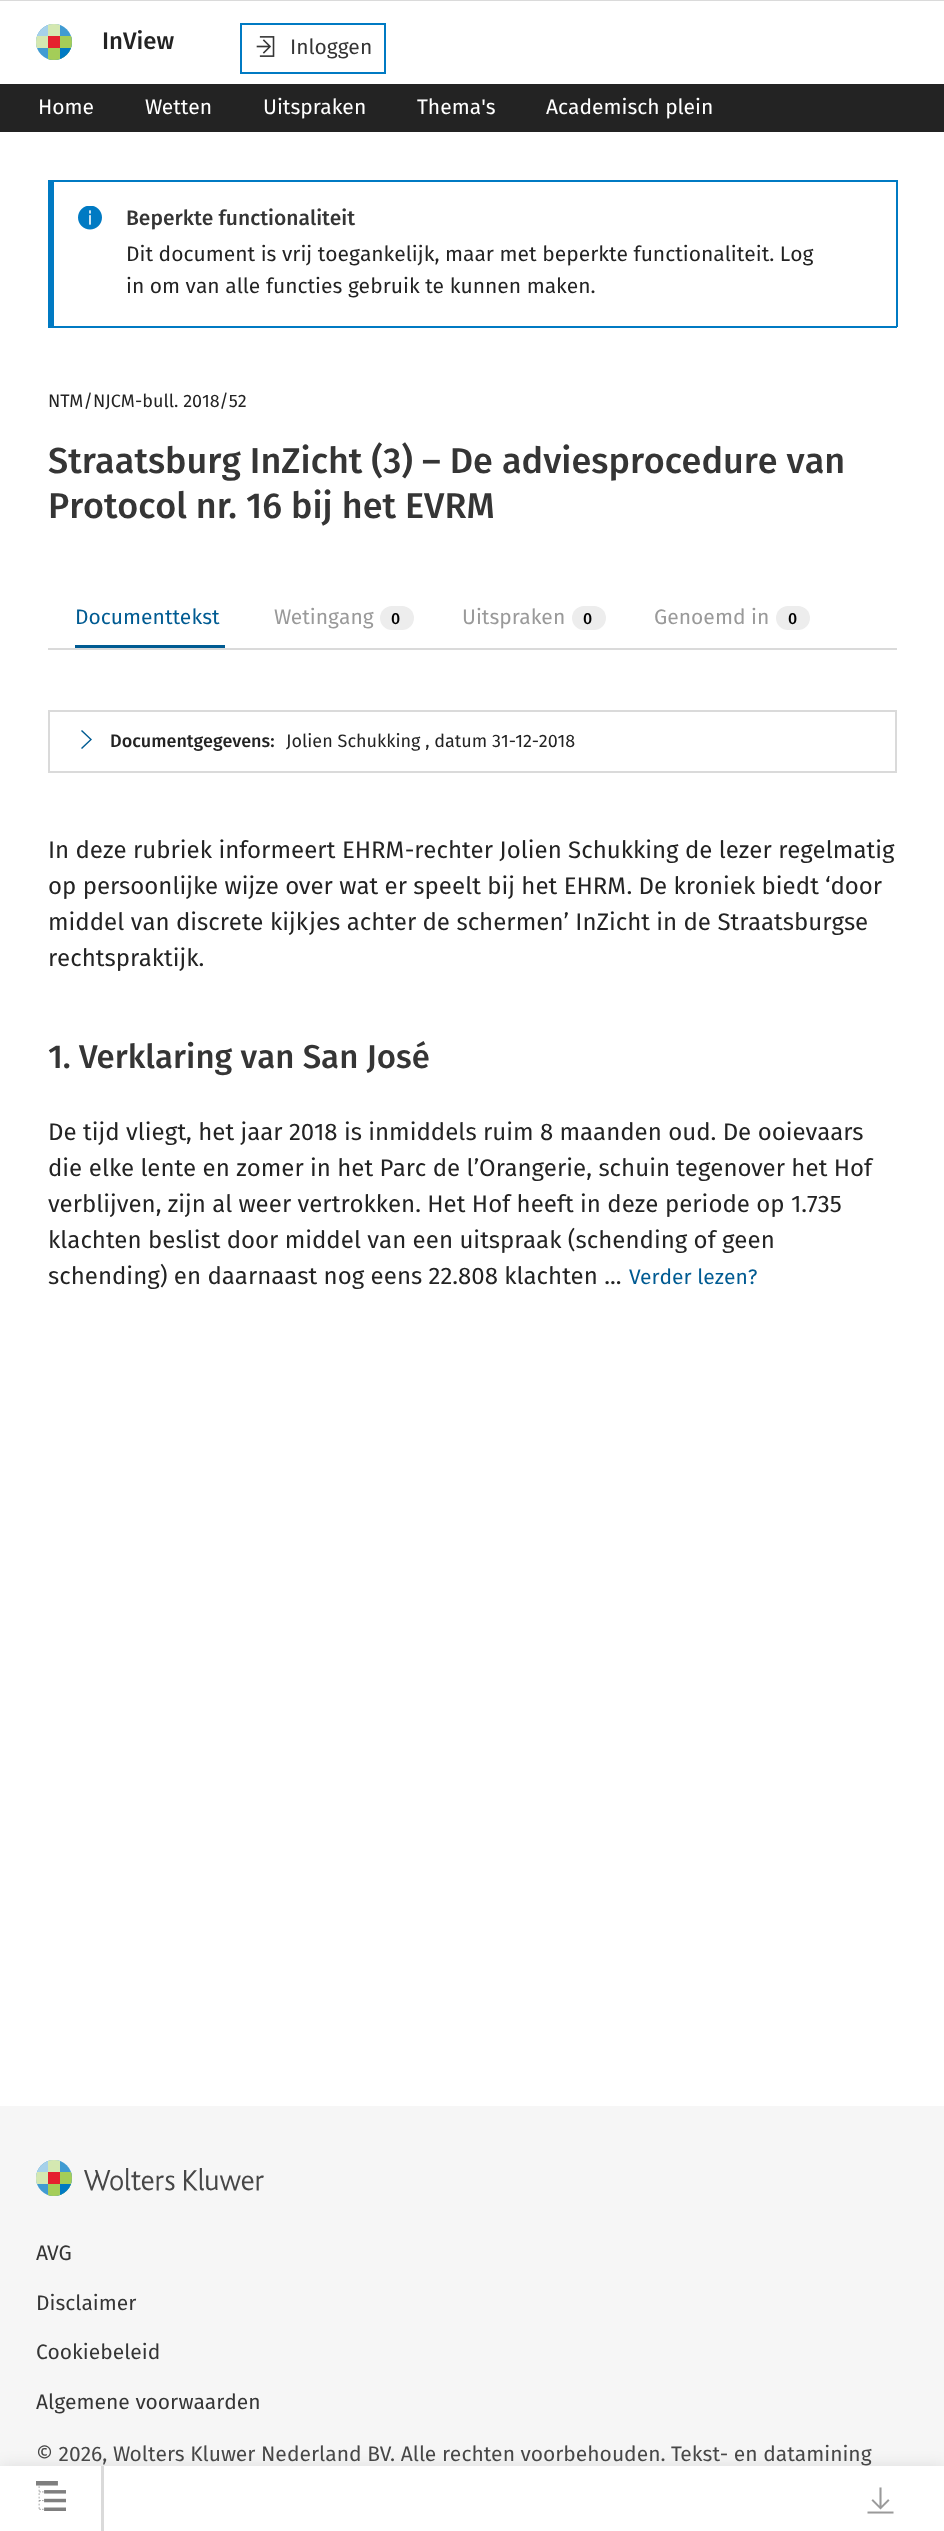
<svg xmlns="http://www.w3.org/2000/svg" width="944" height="2531">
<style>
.a{font:500 24px Fira Sans;fill:#232323}
.b{font:21px Fira Sans;fill:#353535}
.c{font:21px Fira Sans;fill:#fff}
.d{font:500 21px Fira Sans;fill:#353535}
.e{font:21px Fira Sans;fill:#232323}
.f{font:18px Fira Sans;fill:#232323}
.g{font:500 36px Fira Sans;fill:#353535}
.h{font:21px Fira Sans;fill:#005b92}
.i{font:21px Fira Sans;fill:#9a9a9a}
.j{font:500 16px Fira Sans;letter-spacing:2px;fill:#000}
.k{font:500 18px Fira Sans;fill:#232323}
.l{font:24px Fira Sans;fill:#232323}
.m{font:500 33px Fira Sans;fill:#353535}
.n{font:21px Fira Sans;fill:#474747}
</style>
<rect width="100%" height="100%" fill="#fff"/>
<image href="1.png" x="36" y="24" width="36" height="36"/>
<path fill="none" stroke="#007ac3" stroke-width="2" d="M241 24h144v49H241z"/>
<image href="2.png" x="256" y="36" width="19" height="21"/>
<path fill="#232323" d="M0 84h944v48H0z"/>
<path fill="#dadada" d="M0 0h944v1H0z"/>
<path fill="#007ac3" d="M48 180h849v2H48z"/>
<path fill="#007ac3" d="M896 180h2v147H896z"/>
<path fill="#007ac3" d="M48 326h849v2H48z"/>
<path fill="#007ac3" d="M48 180h6v147H48z"/>
<image href="3.png" x="78" y="206" width="24" height="24"/>
<path fill="#dadada" d="M48 648h849v2H48z"/>
<rect fill="#ededed" x="380" y="606" width="34" height="24" rx="12"/>
<rect fill="#ededed" x="572" y="606" width="34" height="24" rx="12"/>
<rect fill="#ededed" x="776" y="606" width="34" height="24" rx="12"/>
<path fill="#005b92" d="M75 645h150v3H75z"/>
<path fill="none" stroke="#dadada" stroke-width="2" d="M49 711h847v61H49z"/>
<path fill="#005b92" d="M82 730l10 9.5l-10 9.5l-1-1l9-8.5l-9-8.5z"/>
<path fill="#f6f6f6" d="M0 2106h944v360H0z"/>
<path fill="#0000001a" filter="blur(8px)" d="M0 2466h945v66H0z"/>
<path fill="#fff" d="M0 2466h944v65H0z"/>
<path fill="#dadada" d="M101 2466h3v65H101z"/>
<image href="4.png" x="36" y="2481" width="30" height="30"/>
<image href="5.png" x="867" y="2487" width="27" height="27"/>
<image href="6.png" x="36" y="2160" width="228" height="36"/>
<text class="a" x="102" y="49">InView</text>
<text class="b" x="290" y="54">Inloggen</text>
<text class="c" x="38" y="114">Home</text>
<text class="c" x="145" y="114">Wetten</text>
<text class="c" x="263" y="114">Uitspraken</text>
<text class="c" x="417" y="114">Thema's</text>
<text class="c" x="546" y="114">Academisch plein</text>
<text class="d" x="126" y="225">Beperkte functionaliteit</text>
<text class="e" x="126" y="261">Dit document is vrij toegankelijk, maar met beperkte functionaliteit. Log</text>
<text class="e" x="126" y="293">in om van alle functies gebruik te kunnen maken.</text>
<text class="f" x="48" y="407">NTM/NJCM-bull. 2018/52</text>
<text class="g" x="48" y="473">Straatsburg InZicht (3) – De adviesprocedure van</text>
<text class="g" x="48" y="518">Protocol nr. 16 bij het EVRM</text>
<text class="h" x="75" y="624">Documenttekst</text>
<text class="i" x="274" y="624">Wetingang</text>
<text class="j" x="391" y="624">0</text>
<text class="i" x="462" y="624">Uitspraken</text>
<text class="j" x="583" y="624">0</text>
<text class="i" x="654" y="624">Genoemd in</text>
<text class="j" x="788" y="624">0</text>
<text class="k" x="110" y="747">Documentgegevens:</text>
<text class="f" x="286" y="747">Jolien Schukking , datum 31-12-2018</text>
<text class="l" x="48" y="858">In deze rubriek informeert EHRM-rechter Jolien Schukking de lezer regelmatig</text>
<text class="l" x="48" y="894">op persoonlijke wijze over wat er speelt bij het EHRM. De kroniek biedt ‘door</text>
<text class="l" x="48" y="930">middel van discrete kijkjes achter de schermen’ InZicht in de Straatsburgse</text>
<text class="l" x="48" y="966">rechtspraktijk.</text>
<text class="m" x="48" y="1068">1. Verklaring van San José</text>
<text class="l" x="48" y="1140">De tijd vliegt, het jaar 2018 is inmiddels ruim 8 maanden oud. De ooievaars</text>
<text class="l" x="48" y="1176">die elke lente en zomer in het Parc de l’Orangerie, schuin tegenover het Hof</text>
<text class="l" x="48" y="1212">verblijven, zijn al weer vertrokken. Het Hof heeft in deze periode op 1.735</text>
<text class="l" x="48" y="1248">klachten beslist door middel van een uitspraak (schending of geen</text>
<text class="l" x="48" y="1284">schending) en daarnaast nog eens 22.808 klachten ...</text>
<text class="h" x="629" y="1284">Verder lezen?</text>
<text class="b" x="36" y="2260">AVG</text>
<text class="b" x="36" y="2310">Disclaimer</text>
<text class="b" x="36" y="2359">Cookiebeleid</text>
<text class="b" x="36" y="2409">Algemene voorwaarden</text>
<text class="n" x="36" y="2461">© 2026, Wolters Kluwer Nederland BV. Alle rechten voorbehouden. Tekst- en datamining</text>
</svg>
